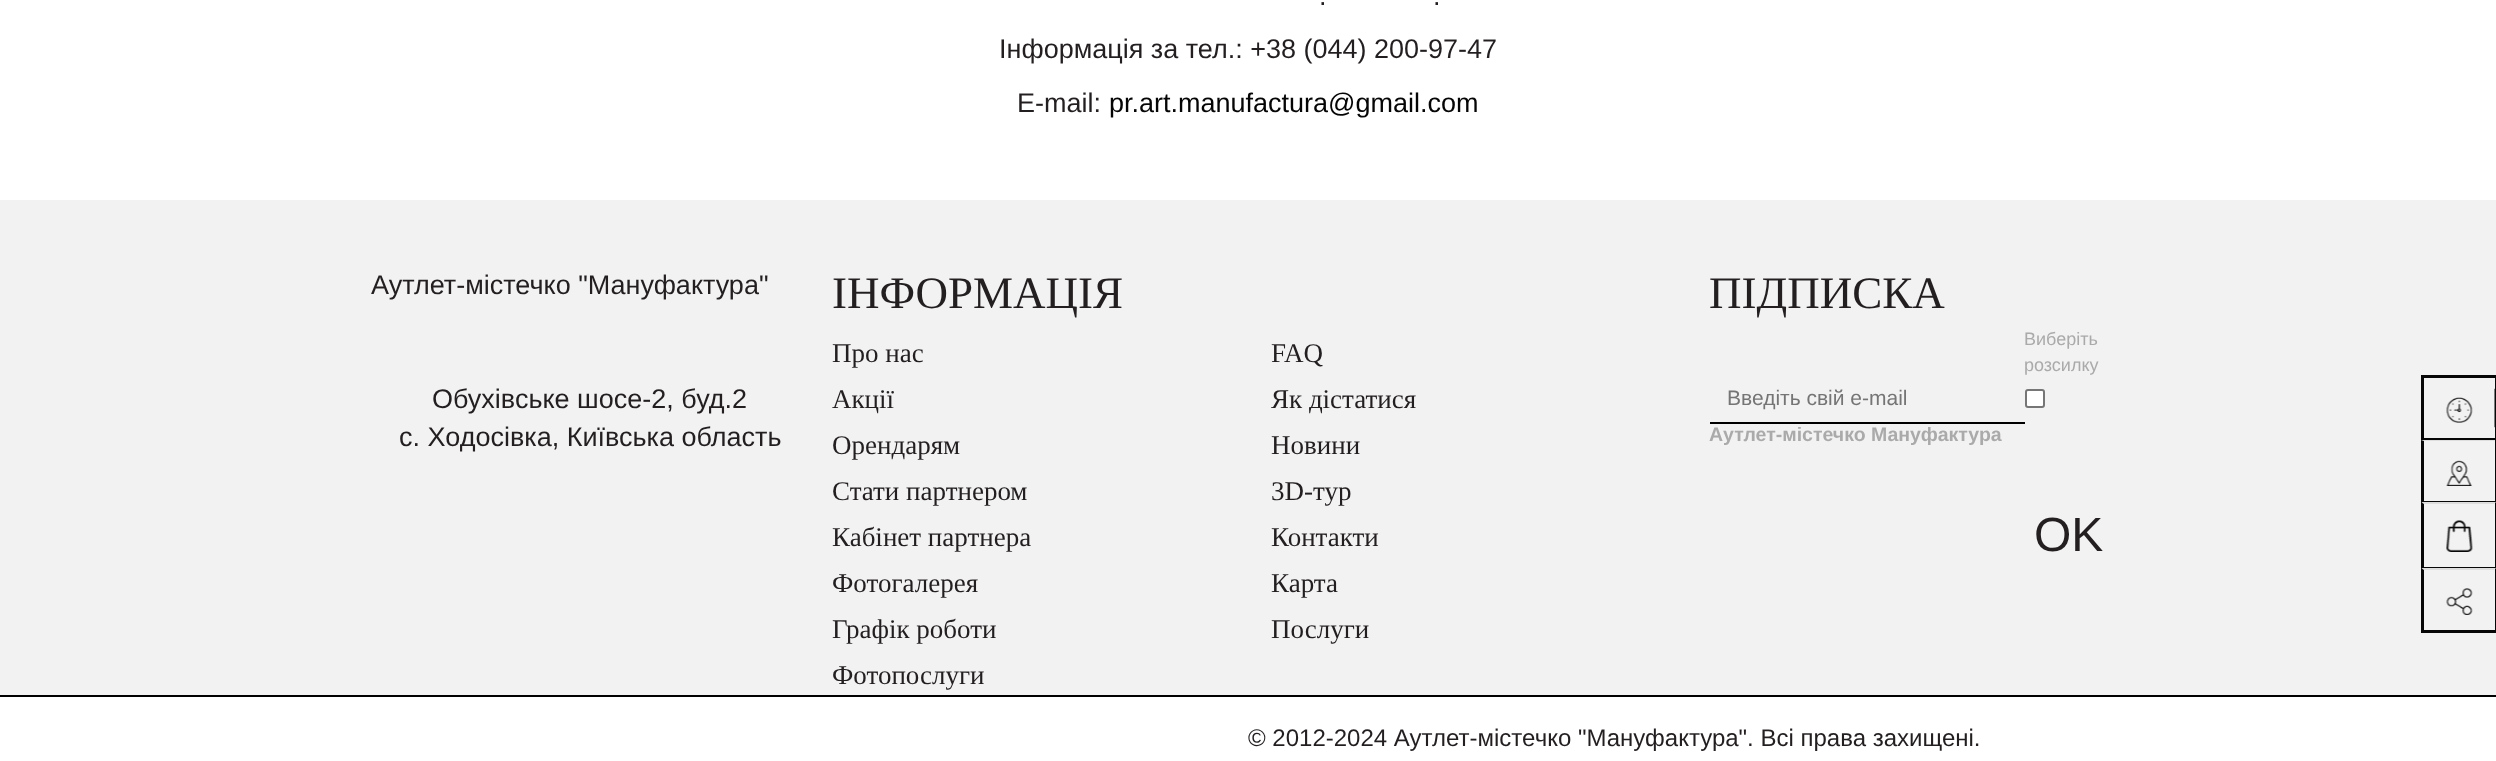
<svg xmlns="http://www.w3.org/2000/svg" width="2496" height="761">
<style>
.a{font:27px Liberation Sans;fill:#231f20}
.b{font:27px Liberation Sans;fill:#050505}
.c{font:45px Liberation Serif;fill:#231f20}
.d{font:27px Liberation Serif;fill:#231f20}
.e{font:18px Liberation Sans;fill:#aaa}
.f{font:bold 19.5px Liberation Sans;fill:#aaa}
.g{font:21px Liberation Sans;fill:#757575}
.h{font:48px Liberation Sans;fill:#231f20}
.i{font:24px Liberation Sans;fill:#231f20}
</style>
<rect width="100%" height="100%" fill="#fff"/>
<path fill="#f2f2f2" d="M0 200h2496v495H0z"/>
<rect fill="#fff" stroke="#767676" stroke-width="2" x="2026" y="390" width="18" height="17" rx="2"/>
<path fill="#000" d="M1710 422h315v2H1710z"/>
<path fill="#000" d="M0 695h2496v2H0z"/>
<path fill="#070707" d="M2421 375h75v3H2421z"/>
<path fill="#070707" d="M2495 375h1v65H2495z"/>
<path fill="#070707" d="M2421 438h75v2H2421z"/>
<path fill="#070707" d="M2421 375h3v65H2421z"/>
<image href="1.png" x="2446" y="397" width="27" height="26"/>
<path fill="#070707" d="M2494.5 427.5v-39l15 19.5z"/>
<path fill="#dedede" d="M2421 440h75l-2 1h-70z"/>
<path fill="#070707" d="M2495 440h1v63H2495z"/>
<path fill="#070707" d="M2421 501h75v2H2421z"/>
<path fill="#070707" d="M2421 502v-62l3 1v60z"/>
<image href="2.png" x="2446" y="460" width="27" height="26"/>
<path fill="#dedede" d="M2421 502h75l-2 2h-70z"/>
<path fill="#070707" d="M2495 503h1v66H2495z"/>
<path fill="#070707" d="M2421 567h75v2H2421z"/>
<path fill="#070707" d="M2421 568v-66l3 2v63z"/>
<image href="3.png" x="2446" y="520" width="27" height="32"/>
<path fill="#dedede" d="M2421 568h75l-2 2h-70z"/>
<path fill="#070707" d="M2495 569h1v64H2495z"/>
<path fill="#070707" d="M2421 630h75v3H2421z"/>
<path fill="#070707" d="M2421 633v-65l3 2v60z"/>
<image href="4.png" x="2446" y="588" width="27" height="27"/>
<text class="a" x="1319" y="5">.</text>
<text class="a" x="1433" y="5">.</text>
<text class="a" x="999" y="58">Інформація за тел.: +38 (044) 200-97-47</text>
<text class="a" x="1017" y="112">E-mail:</text>
<text class="b" x="1109" y="112">pr.art.manufactura@gmail.com</text>
<text class="a" x="371" y="294">Аутлет-містечко "Мануфактура"</text>
<text class="a" x="432" y="408">Обухівське шосе-2, буд.2</text>
<text class="a" x="399" y="446">с. Ходосівка, Київська область</text>
<text class="c" x="832" y="308">ІНФОРМАЦІЯ</text>
<text class="d" x="832" y="362">Про нас</text>
<text class="d" x="832" y="408">Акції</text>
<text class="d" x="832" y="454">Орендарям</text>
<text class="d" x="832" y="500">Стати партнером</text>
<text class="d" x="832" y="546">Кабінет партнера</text>
<text class="d" x="832" y="592">Фотогалерея</text>
<text class="d" x="832" y="638">Графік роботи</text>
<text class="d" x="832" y="684">Фотопослуги</text>
<text class="d" x="1271" y="362">FAQ</text>
<text class="d" x="1271" y="408">Як дістатися</text>
<text class="d" x="1271" y="454">Новини</text>
<text class="d" x="1271" y="500">3D-тур</text>
<text class="d" x="1271" y="546">Контакти</text>
<text class="d" x="1271" y="592">Карта</text>
<text class="d" x="1271" y="638">Послуги</text>
<text class="c" x="1709" y="308">ПІДПИСКА</text>
<text class="e" x="2024" y="345">Виберіть</text>
<text class="e" x="2024" y="371">розсилку</text>
<text class="f" x="1709" y="441">Аутлет-містечко Мануфактура</text>
<text class="g" x="1727" y="405">Введіть свій e-mail</text>
<text class="h" x="2034" y="551">OK</text>
<text class="i" x="1248" y="746">© 2012-2024 Аутлет-містечко "Мануфактура". Всі права захищені.</text>
</svg>
